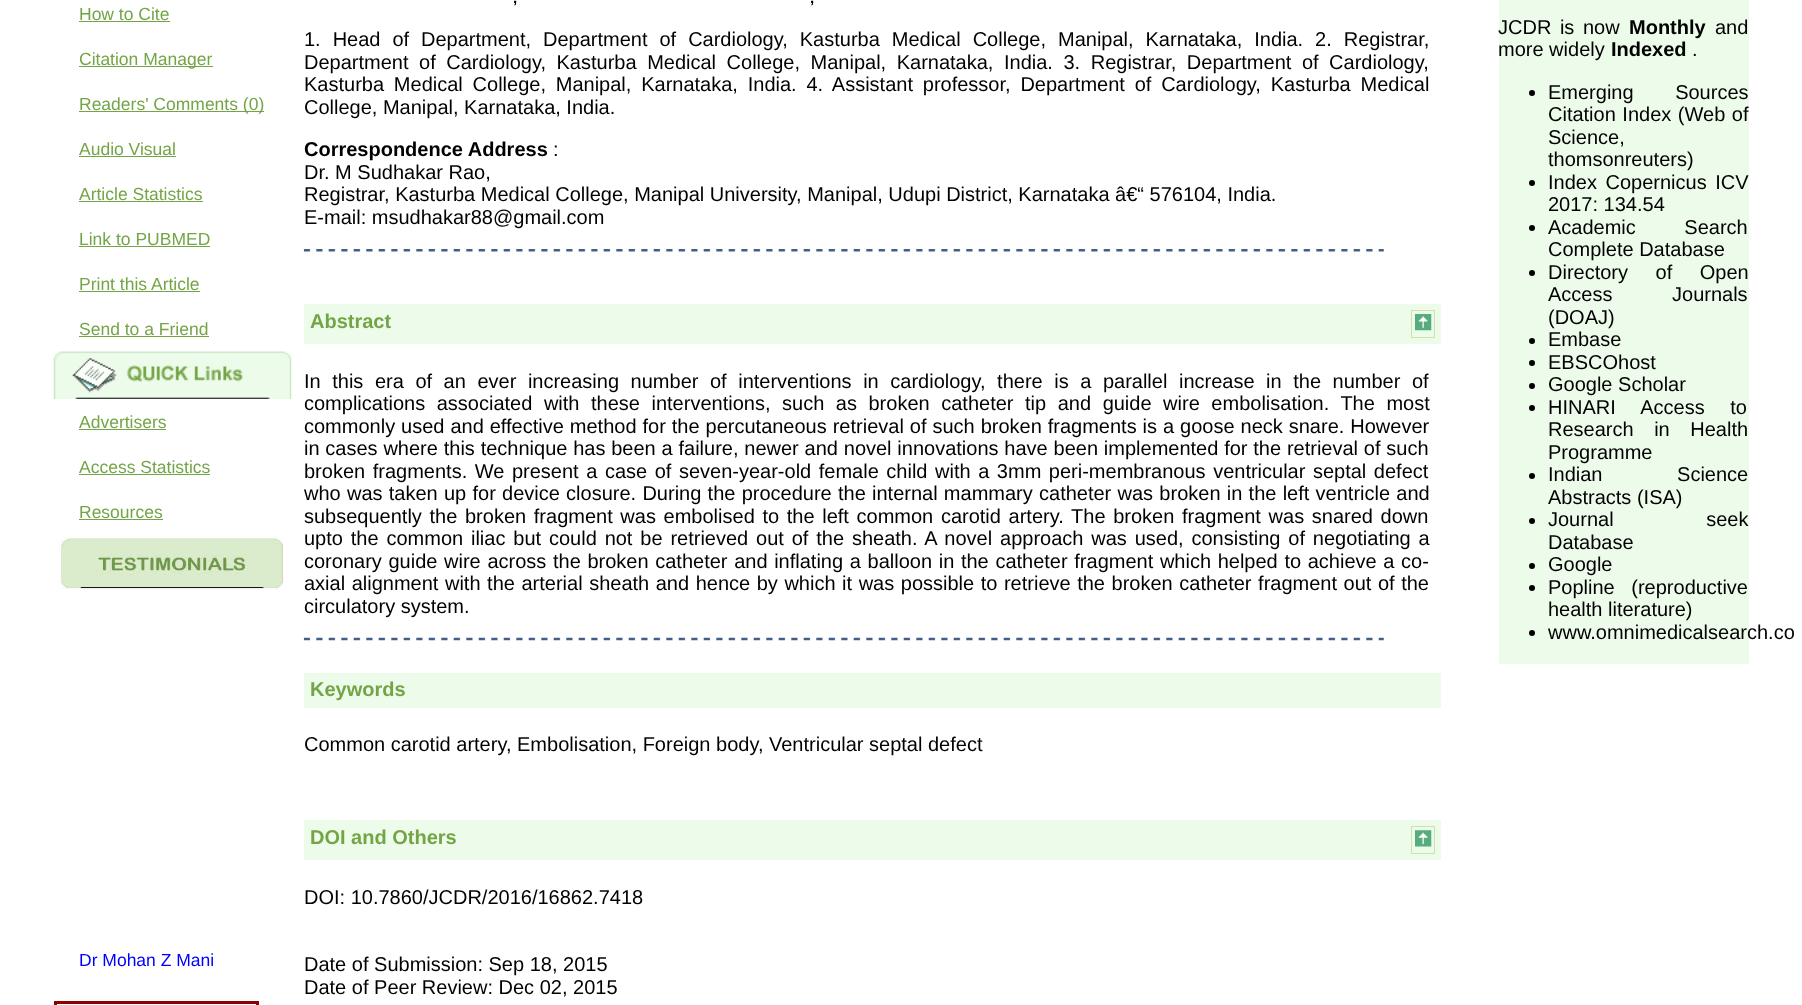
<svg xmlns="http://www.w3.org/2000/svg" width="1802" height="1005">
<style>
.a{font:17.5px Liberation Sans;fill:#73a546}
.b{font:17.5px Liberation Sans;fill:#00f}
.c{font:bold 15px Liberation Sans;fill:#000}
.d{font:20px Liberation Sans;fill:#000}
.e{font:bold 20px Liberation Sans;fill:#000}
.f{font:bold 20px Liberation Sans;fill:#73a546}
</style>
<rect width="100%" height="100%" fill="#fff"/>
<path fill="#73a546" d="M79 21h91v1H79z"/>
<path fill="#73a546" d="M79 66h134v1H79z"/>
<path fill="#73a546" d="M79 111h185v1H79z"/>
<path fill="#73a546" d="M79 156h97v1H79z"/>
<path fill="#73a546" d="M79 201h124v1H79z"/>
<path fill="#73a546" d="M79 246h131v1H79z"/>
<path fill="#73a546" d="M79 291h121v1H79z"/>
<path fill="#73a546" d="M79 336h130v1H79z"/>
<image href="1.png" x="53" y="351" width="239" height="48"/>
<path fill="#73a546" d="M79 429h87v1H79z"/>
<path fill="#73a546" d="M79 474h131v1H79z"/>
<path fill="#73a546" d="M79 519h84v1H79z"/>
<image href="2.png" x="59" y="536" width="225" height="54"/>
<path fill="none" stroke="#8b0000" stroke-width="3" d="M55.5 1002.5h202v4H55.5z"/>
<image href="3.png" x="303" y="249" width="1081" height="3"/>
<path fill="#edfbea" d="M304 304h1137v40H304z"/>
<path fill="none" stroke="#cee2a9" d="M1411.5 310.5h23v27H1411.5z"/>
<image href="4.png" x="1415" y="314" width="17" height="17"/>
<image href="5.png" x="303" y="637" width="1081" height="4"/>
<path fill="#edfbea" d="M304 673h1137v35H304z"/>
<path fill="#edfbea" d="M304 820h1137v40H304z"/>
<path fill="none" stroke="#cee2a9" d="M1411.5 826.5h23v27H1411.5z"/>
<image href="6.png" x="1415" y="830" width="17" height="17"/>
<path fill="#edfbea" d="M1499 0h250v664H1499z"/>
<circle fill="#000" cx="1532" cy="93" r="3"/>
<circle fill="#000" cx="1532" cy="183" r="3"/>
<circle fill="#000" cx="1532" cy="228" r="3"/>
<circle fill="#000" cx="1532" cy="273" r="3"/>
<circle fill="#000" cx="1532" cy="341" r="3"/>
<circle fill="#000" cx="1532" cy="363" r="3"/>
<circle fill="#000" cx="1532" cy="386" r="3"/>
<circle fill="#000" cx="1532" cy="408" r="3"/>
<circle fill="#000" cx="1532" cy="476" r="3"/>
<circle fill="#000" cx="1532" cy="521" r="3"/>
<circle fill="#000" cx="1532" cy="566" r="3"/>
<circle fill="#000" cx="1532" cy="588" r="3"/>
<circle fill="#000" cx="1532" cy="633" r="3"/>
<text class="a" x="79" y="20">How to Cite</text>
<text class="a" x="79" y="65">Citation Manager</text>
<text class="a" x="79" y="110">Readers' Comments (0)</text>
<text class="a" x="79" y="155">Audio Visual</text>
<text class="a" x="79" y="200">Article Statistics</text>
<text class="a" x="79" y="245">Link to PUBMED</text>
<text class="a" x="79" y="290">Print this Article</text>
<text class="a" x="79" y="335">Send to a Friend</text>
<text class="a" x="79" y="428">Advertisers</text>
<text class="a" x="79" y="473">Access Statistics</text>
<text class="a" x="79" y="518">Resources</text>
<text class="b" x="79" y="966">Dr Mohan Z Mani</text>
<text class="c" x="513" y="3">,</text>
<text class="c" x="810" y="3">,</text>
<text class="d" x="304" y="46" word-spacing="6.4">1. Head of Department, Department of Cardiology, Kasturba Medical College, Manipal, Karnataka, India. 2. Registrar,</text>
<text class="d" x="304" y="69" word-spacing="5">Department of Cardiology, Kasturba Medical College, Manipal, Karnataka, India. 3. Registrar, Department of Cardiology,</text>
<text class="d" x="304" y="91" word-spacing="4.25">Kasturba Medical College, Manipal, Karnataka, India. 4. Assistant professor, Department of Cardiology, Kasturba Medical</text>
<text class="d" x="304" y="114">College, Manipal, Karnataka, India.</text>
<text class="e" x="304" y="156">Correspondence Address</text>
<text class="d" x="553" y="156">:</text>
<text class="d" x="304" y="179">Dr. M Sudhakar Rao,</text>
<text class="d" x="304" y="201">Registrar, Kasturba Medical College, Manipal University, Manipal, Udupi District, Karnataka â€“ 576104, India.</text>
<text class="d" x="304" y="224">E-mail: msudhakar88@gmail.com</text>
<text class="f" x="310" y="328">Abstract</text>
<text class="d" x="304" y="388" word-spacing="6">In this era of an ever increasing number of interventions in cardiology, there is a parallel increase in the number of</text>
<text class="d" x="304" y="410" word-spacing="6">complications associated with these interventions, such as broken catheter tip and guide wire embolisation. The most</text>
<text class="d" x="304" y="433" word-spacing="0.4">commonly used and effective method for the percutaneous retrieval of such broken fragments is a goose neck snare. However</text>
<text class="d" x="304" y="455" word-spacing="0.25">in cases where this technique has been a failure, newer and novel innovations have been implemented for the retrieval of such</text>
<text class="d" x="304" y="478" word-spacing="2">broken fragments. We present a case of seven-year-old female child with a 3mm peri-membranous ventricular septal defect</text>
<text class="d" x="304" y="500" word-spacing="0.7">who was taken up for device closure. During the procedure the internal mammary catheter was broken in the left ventricle and</text>
<text class="d" x="304" y="523" word-spacing="2.1">subsequently the broken fragment was embolised to the left common carotid artery. The broken fragment was snared down</text>
<text class="d" x="304" y="545" word-spacing="2.3">upto the common iliac but could not be retrieved out of the sheath. A novel approach was used, consisting of negotiating a</text>
<text class="d" x="304" y="568" word-spacing="1.1">coronary guide wire across the broken catheter and inflating a balloon in the catheter fragment which helped to achieve a co-</text>
<text class="d" x="304" y="590" word-spacing="1">axial alignment with the arterial sheath and hence by which it was possible to retrieve the broken catheter fragment out of the</text>
<text class="d" x="304" y="613">circulatory system.</text>
<text class="f" x="310" y="696">Keywords</text>
<text class="d" x="304" y="751">Common carotid artery, Embolisation, Foreign body, Ventricular septal defect</text>
<text class="f" x="310" y="844">DOI and Others</text>
<text class="d" x="304" y="904">DOI: 10.7860/JCDR/2016/16862.7418</text>
<text class="d" x="304" y="971">Date of Submission: Sep 18, 2015</text>
<text class="d" x="304" y="994">Date of Peer Review: Dec 02, 2015</text>
<text class="d" x="1498" y="34" word-spacing="3">JCDR is now</text>
<text class="e" x="1629" y="34">Monthly</text>
<text class="d" x="1715" y="34">and</text>
<text class="d" x="1498" y="56">more widely</text>
<text class="e" x="1611" y="56">Indexed</text>
<text class="d" x="1692" y="56">.</text>
<text class="d" x="1548" y="99" word-spacing="36">Emerging Sources</text>
<text class="d" x="1548" y="121" word-spacing="1">Citation Index (Web of</text>
<text class="d" x="1548" y="144">Science,</text>
<text class="d" x="1548" y="166">thomsonreuters)</text>
<text class="d" x="1548" y="189" word-spacing="3">Index Copernicus ICV</text>
<text class="d" x="1548" y="211">2017: 134.54</text>
<text class="d" x="1548" y="234" word-spacing="43">Academic Search</text>
<text class="d" x="1548" y="256">Complete Database</text>
<text class="d" x="1548" y="279" word-spacing="22">Directory of Open</text>
<text class="d" x="1548" y="301" word-spacing="54">Access Journals</text>
<text class="d" x="1548" y="324">(DOAJ)</text>
<text class="d" x="1548" y="346">Embase</text>
<text class="d" x="1548" y="369">EBSCOhost</text>
<text class="d" x="1548" y="391">Google Scholar</text>
<text class="d" x="1548" y="414" word-spacing="20">HINARI Access to</text>
<text class="d" x="1548" y="436" word-spacing="15">Research in Health</text>
<text class="d" x="1548" y="459">Programme</text>
<text class="d" x="1548" y="481" word-spacing="69">Indian Science</text>
<text class="d" x="1548" y="504">Abstracts (ISA)</text>
<text class="d" x="1548" y="526" word-spacing="87">Journal seek</text>
<text class="d" x="1548" y="549">Database</text>
<text class="d" x="1548" y="571">Google</text>
<text class="d" x="1548" y="594" word-spacing="11">Popline (reproductive</text>
<text class="d" x="1548" y="616">health literature)</text>
<text class="d" x="1548" y="639">www.omnimedicalsearch.co</text>
</svg>
